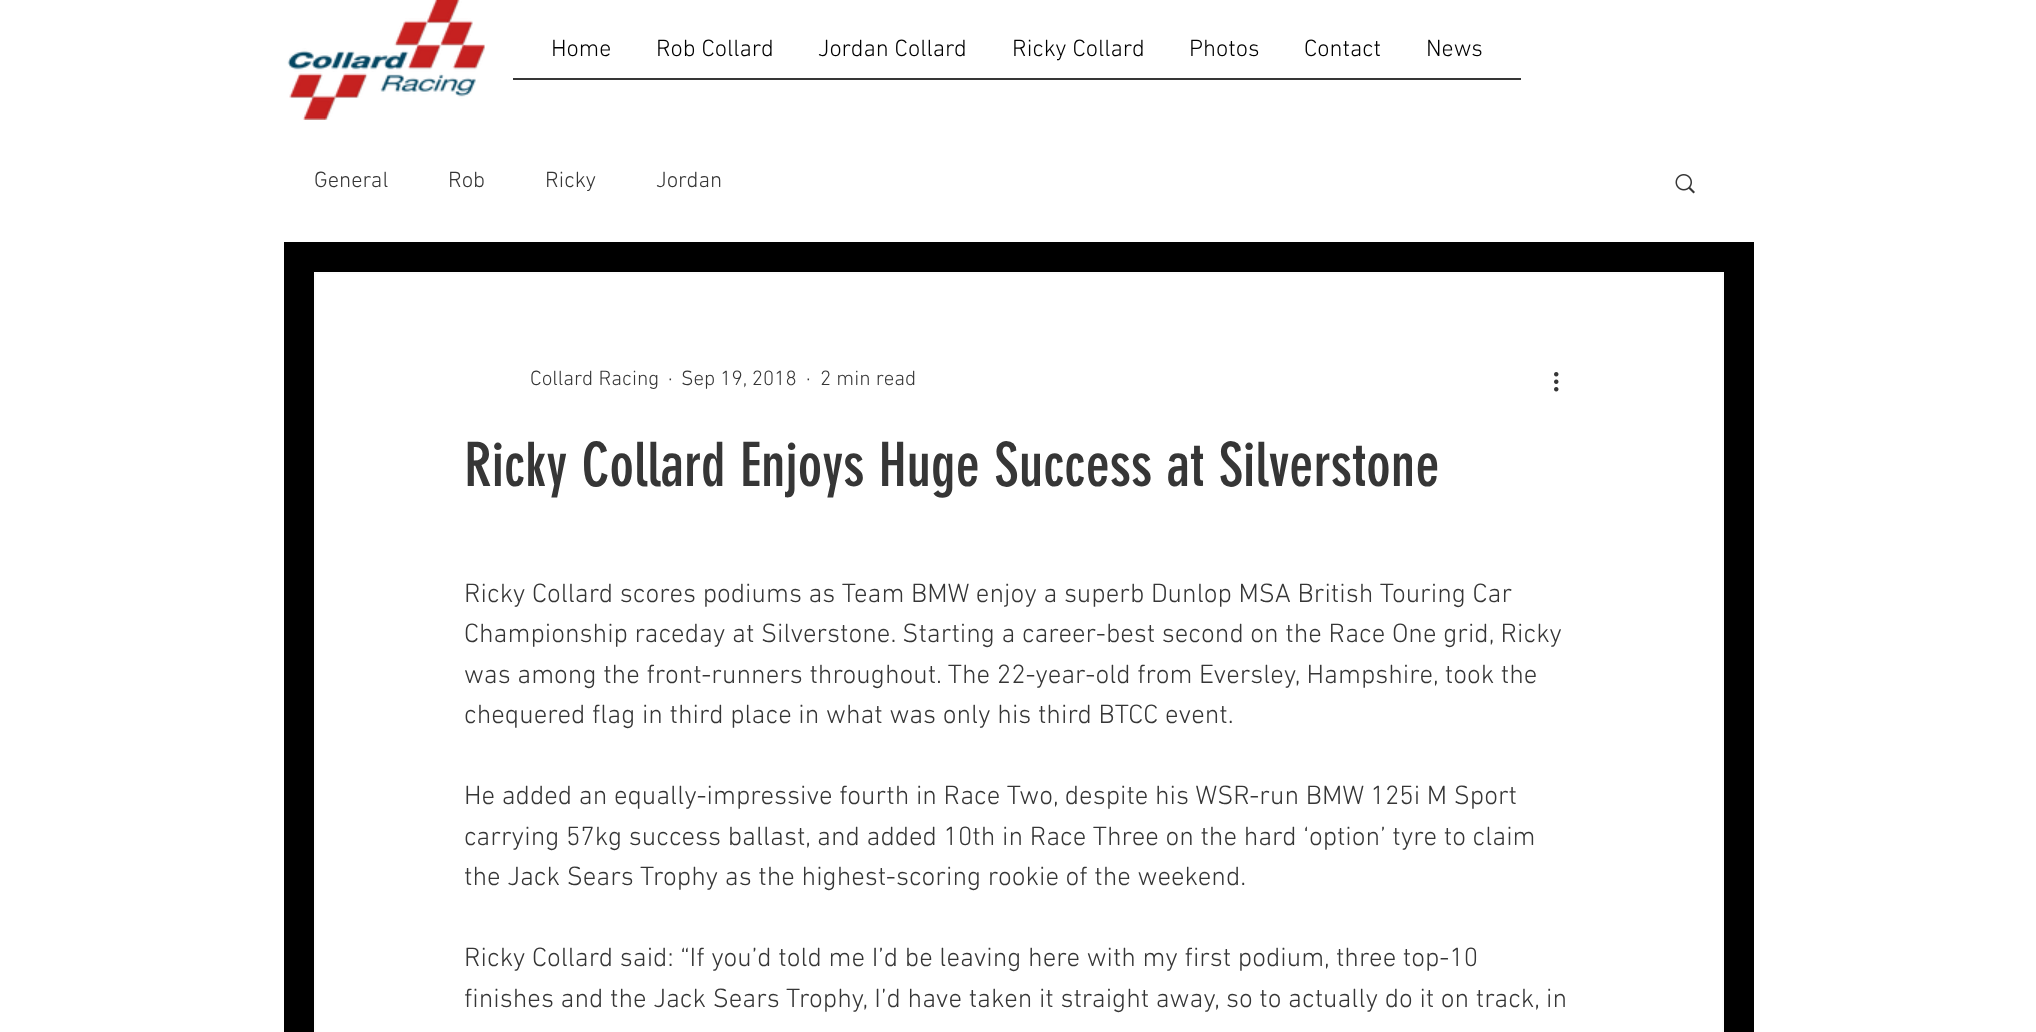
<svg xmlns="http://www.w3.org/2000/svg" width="2036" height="1032">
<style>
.a{font:300 24px 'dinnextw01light';fill:#000}
.b{font:300 22.5px 'dinnextw01light';fill:#363636}
.c{font:300 21px 'dinnextw01light';fill:#363636}
.d{font:60px 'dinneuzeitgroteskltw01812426';fill:#363636}
.e{font:300 27px 'dinnextw01light';fill:#363636}
</style>
<rect width="100%" height="100%" fill="#fff"/>
<image href="1.png" x="287" y="0" width="198" height="120"/>
<path fill="#363636" d="M513 78h1008v2H513z"/>
<path fill="#000" d="M284 242h1470v790H284z"/>
<image href="2.png" x="1675" y="174" width="20" height="20"/>
<path fill="#fff" stroke="#fbfbfb" stroke-width="2" d="M315 273h1408v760H315z"/>
<image href="3.png" x="1554" y="372" width="5" height="20"/>
<text class="a" x="551" y="56">Home</text>
<text class="a" x="656" y="56">Rob Collard</text>
<text class="a" x="818" y="56">Jordan Collard</text>
<text class="a" x="1012" y="56">Ricky Collard</text>
<text class="a" x="1189" y="56">Photos</text>
<text class="a" x="1304" y="56">Contact</text>
<text class="a" x="1426" y="56">News</text>
<text class="b" x="314" y="187">General</text>
<text class="b" x="448" y="187">Rob</text>
<text class="b" x="545" y="187">Ricky</text>
<text class="b" x="656" y="187">Jordan</text>
<text class="c" x="530" y="385">Collard Racing</text>
<text class="c" x="668" y="385">·</text>
<text class="c" x="681" y="385">Sep 19, 2018</text>
<text class="c" x="806" y="385">·</text>
<text class="c" x="820" y="385">2 min read</text>
<text class="d" x="464" y="486">Ricky Collard Enjoys Huge Success at Silverstone</text>
<text class="e" x="464" y="602">Ricky Collard scores podiums as Team BMW enjoy a superb Dunlop MSA British Touring Car</text>
<text class="e" x="464" y="642">Championship raceday at Silverstone. Starting a career-best second on the Race One grid, Ricky</text>
<text class="e" x="464" y="683">was among the front-runners throughout. The 22-year-old from Eversley, Hampshire, took the</text>
<text class="e" x="464" y="723">chequered flag in third place in what was only his third BTCC event.</text>
<text class="e" x="464" y="804">He added an equally-impressive fourth in Race Two, despite his WSR-run BMW 125i M Sport</text>
<text class="e" x="464" y="845">carrying 57kg success ballast, and added 10th in Race Three on the hard ‘option’ tyre to claim</text>
<text class="e" x="464" y="885">the Jack Sears Trophy as the highest-scoring rookie of the weekend.</text>
<text class="e" x="464" y="966">Ricky Collard said: “If you’d told me I’d be leaving here with my first podium, three top-10</text>
<text class="e" x="464" y="1007">finishes and the Jack Sears Trophy, I’d have taken it straight away, so to actually do it on track, in</text>
</svg>
